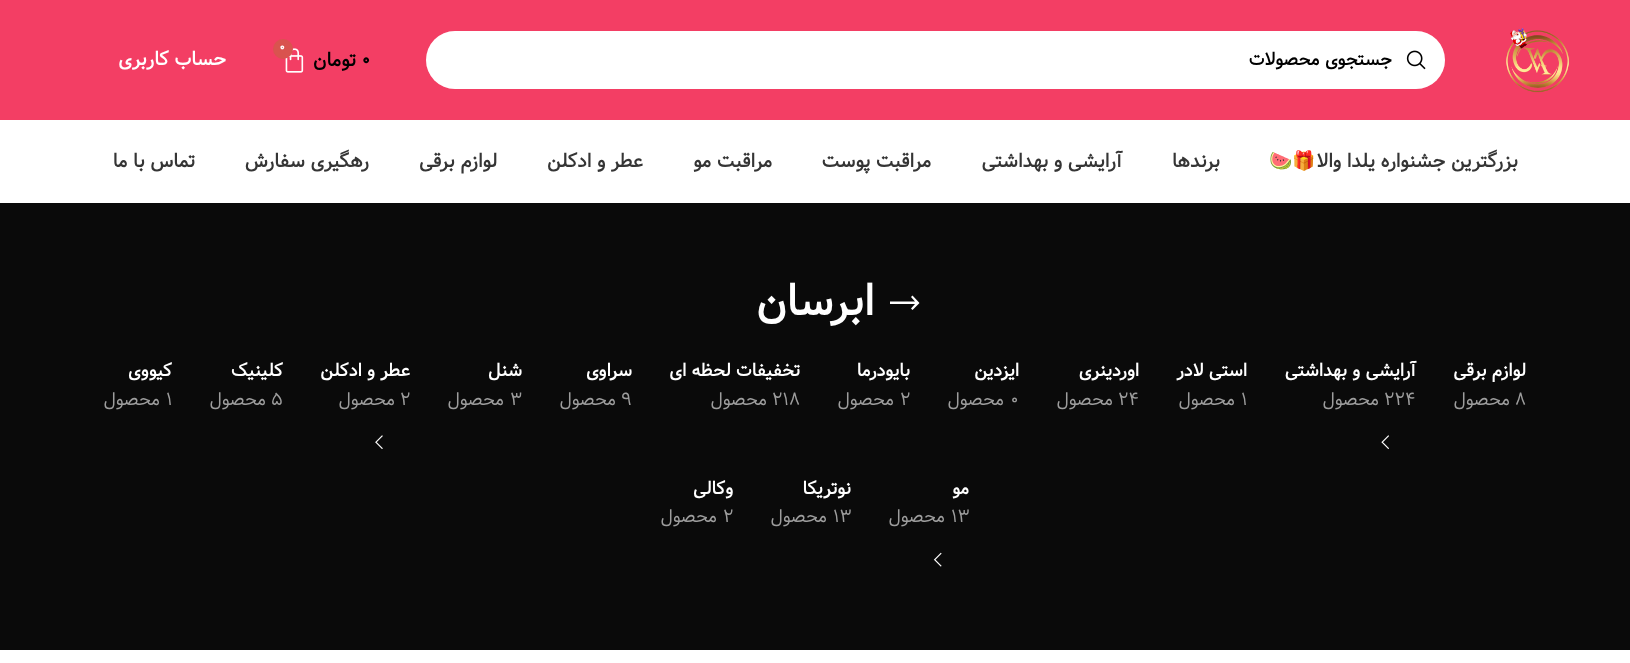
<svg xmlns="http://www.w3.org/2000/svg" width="1630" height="663">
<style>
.a{font:bold 17.5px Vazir;direction:rtl;fill:#000}
.b{font:bold 12px Vazir;fill:#fff}
.c{font:bold 18.75px Vazir;fill:#000}
.d{font:bold 18.75px Vazir;direction:rtl;fill:#000}
.e{font:bold 18.75px Vazir;direction:rtl;fill:#fff}
.f{font:bold 18.75px Vazir;direction:rtl;fill:#353535}
.g{font:bold 18.75px Noto Color Emoji;direction:rtl;fill:#353535}
.h{font:bold 42.5px Vazir;direction:rtl;fill:#fff}
.i{font:bold 17.5px Vazir;direction:rtl;fill:#fff}
.j{font:17.5px Vazir;fill:#9d9d9d}
.k{font:17.5px Vazir;direction:rtl;fill:#9d9d9d}
</style>
<rect width="100%" height="100%" fill="#fff"/>
<path fill="#f33e64" d="M0 0h1630v120H0z"/>
<image href="1.png" x="1506" y="28" width="63" height="65"/>
<rect fill="#fff" x="426" y="31" width="1019" height="58" rx="29"/>
<rect fill="none" stroke="#ffffff33" stroke-width="3" x="427.5" y="32.5" width="1016" height="55" rx="27.5"/>
<image href="2.png" x="1406" y="50" width="20" height="20"/>
<image href="3.png" x="285" y="48" width="19" height="25"/>
<circle fill="#d9534f" cx="283" cy="49" r="10"/>
<path fill="#0a0a0a" d="M0 203h1630v447H0z"/>
<path fill="#fff" d="M919.5 303l-7-7.5l-1.5 1.5l4 4.5h-25v2.5h25l-4 4.5l1.5 1.5z"/>
<image href="4.png" x="1381" y="435" width="8" height="15"/>
<image href="5.png" x="375" y="435" width="8" height="14"/>
<image href="6.png" x="933" y="552" width="9" height="15"/>
<text class="a" x="1392" y="65">جستجوی محصولات</text>
<text class="b" x="279" y="51">0</text>
<text class="c" x="361" y="66">0</text>
<text class="d" x="356" y="66">تومان</text>
<text class="e" x="226" y="65">حساب کاربری</text>
<text class="f" x="1518" y="167">بزرگترین جشنواره یلدا والا</text>
<text class="g" x="1316" y="167">🎁🍉</text>
<text class="f" x="1220" y="167">برندها</text>
<text class="f" x="1122" y="167">آرایشی و بهداشتی</text>
<text class="f" x="931" y="167">مراقبت پوست</text>
<text class="f" x="772" y="167">مراقبت مو</text>
<text class="f" x="643" y="167">عطر و ادکلن</text>
<text class="f" x="497" y="167">لوازم برقی</text>
<text class="f" x="369" y="167">رهگیری سفارش</text>
<text class="f" x="195" y="167">تماس با ما</text>
<text class="h" x="874" y="315">ابرسان</text>
<text class="i" x="1526" y="376">لوازم برقی</text>
<text class="j" x="1515" y="405">8</text>
<text class="k" x="1510" y="405">محصول</text>
<text class="i" x="1416" y="376">آرایشی و بهداشتی</text>
<text class="j" x="1384" y="405">224</text>
<text class="k" x="1379" y="405">محصول</text>
<text class="i" x="1247" y="376">استی لادر</text>
<text class="j" x="1241" y="405">1</text>
<text class="k" x="1235" y="405">محصول</text>
<text class="i" x="1139" y="376">اوردینری</text>
<text class="j" x="1118" y="405">24</text>
<text class="k" x="1113" y="405">محصول</text>
<text class="i" x="1019" y="376">ایزدین</text>
<text class="j" x="1010" y="405">0</text>
<text class="k" x="1004" y="405">محصول</text>
<text class="i" x="910" y="376">بایودرما</text>
<text class="j" x="900" y="405">2</text>
<text class="k" x="894" y="405">محصول</text>
<text class="i" x="800" y="376">تخفیفات لحظه ای</text>
<text class="j" x="772" y="405">218</text>
<text class="k" x="767" y="405">محصول</text>
<text class="i" x="632" y="376">سراوی</text>
<text class="j" x="621" y="405">9</text>
<text class="k" x="616" y="405">محصول</text>
<text class="i" x="522" y="376">شنل</text>
<text class="j" x="510" y="405">3</text>
<text class="k" x="504" y="405">محصول</text>
<text class="i" x="410" y="376">عطر و ادکلن</text>
<text class="j" x="400" y="405">2</text>
<text class="k" x="395" y="405">محصول</text>
<text class="i" x="283" y="376">کلینیک</text>
<text class="j" x="271" y="405">5</text>
<text class="k" x="266" y="405">محصول</text>
<text class="i" x="172" y="376">کیووی</text>
<text class="j" x="166" y="405">1</text>
<text class="k" x="160" y="405">محصول</text>
<text class="i" x="969" y="494">مو</text>
<text class="j" x="951" y="522">13</text>
<text class="k" x="945" y="522">محصول</text>
<text class="i" x="851" y="494">نوتریکا</text>
<text class="j" x="833" y="522">13</text>
<text class="k" x="827" y="522">محصول</text>
<text class="i" x="733" y="494">وکالی</text>
<text class="j" x="723" y="522">2</text>
<text class="k" x="717" y="522">محصول</text>
</svg>
